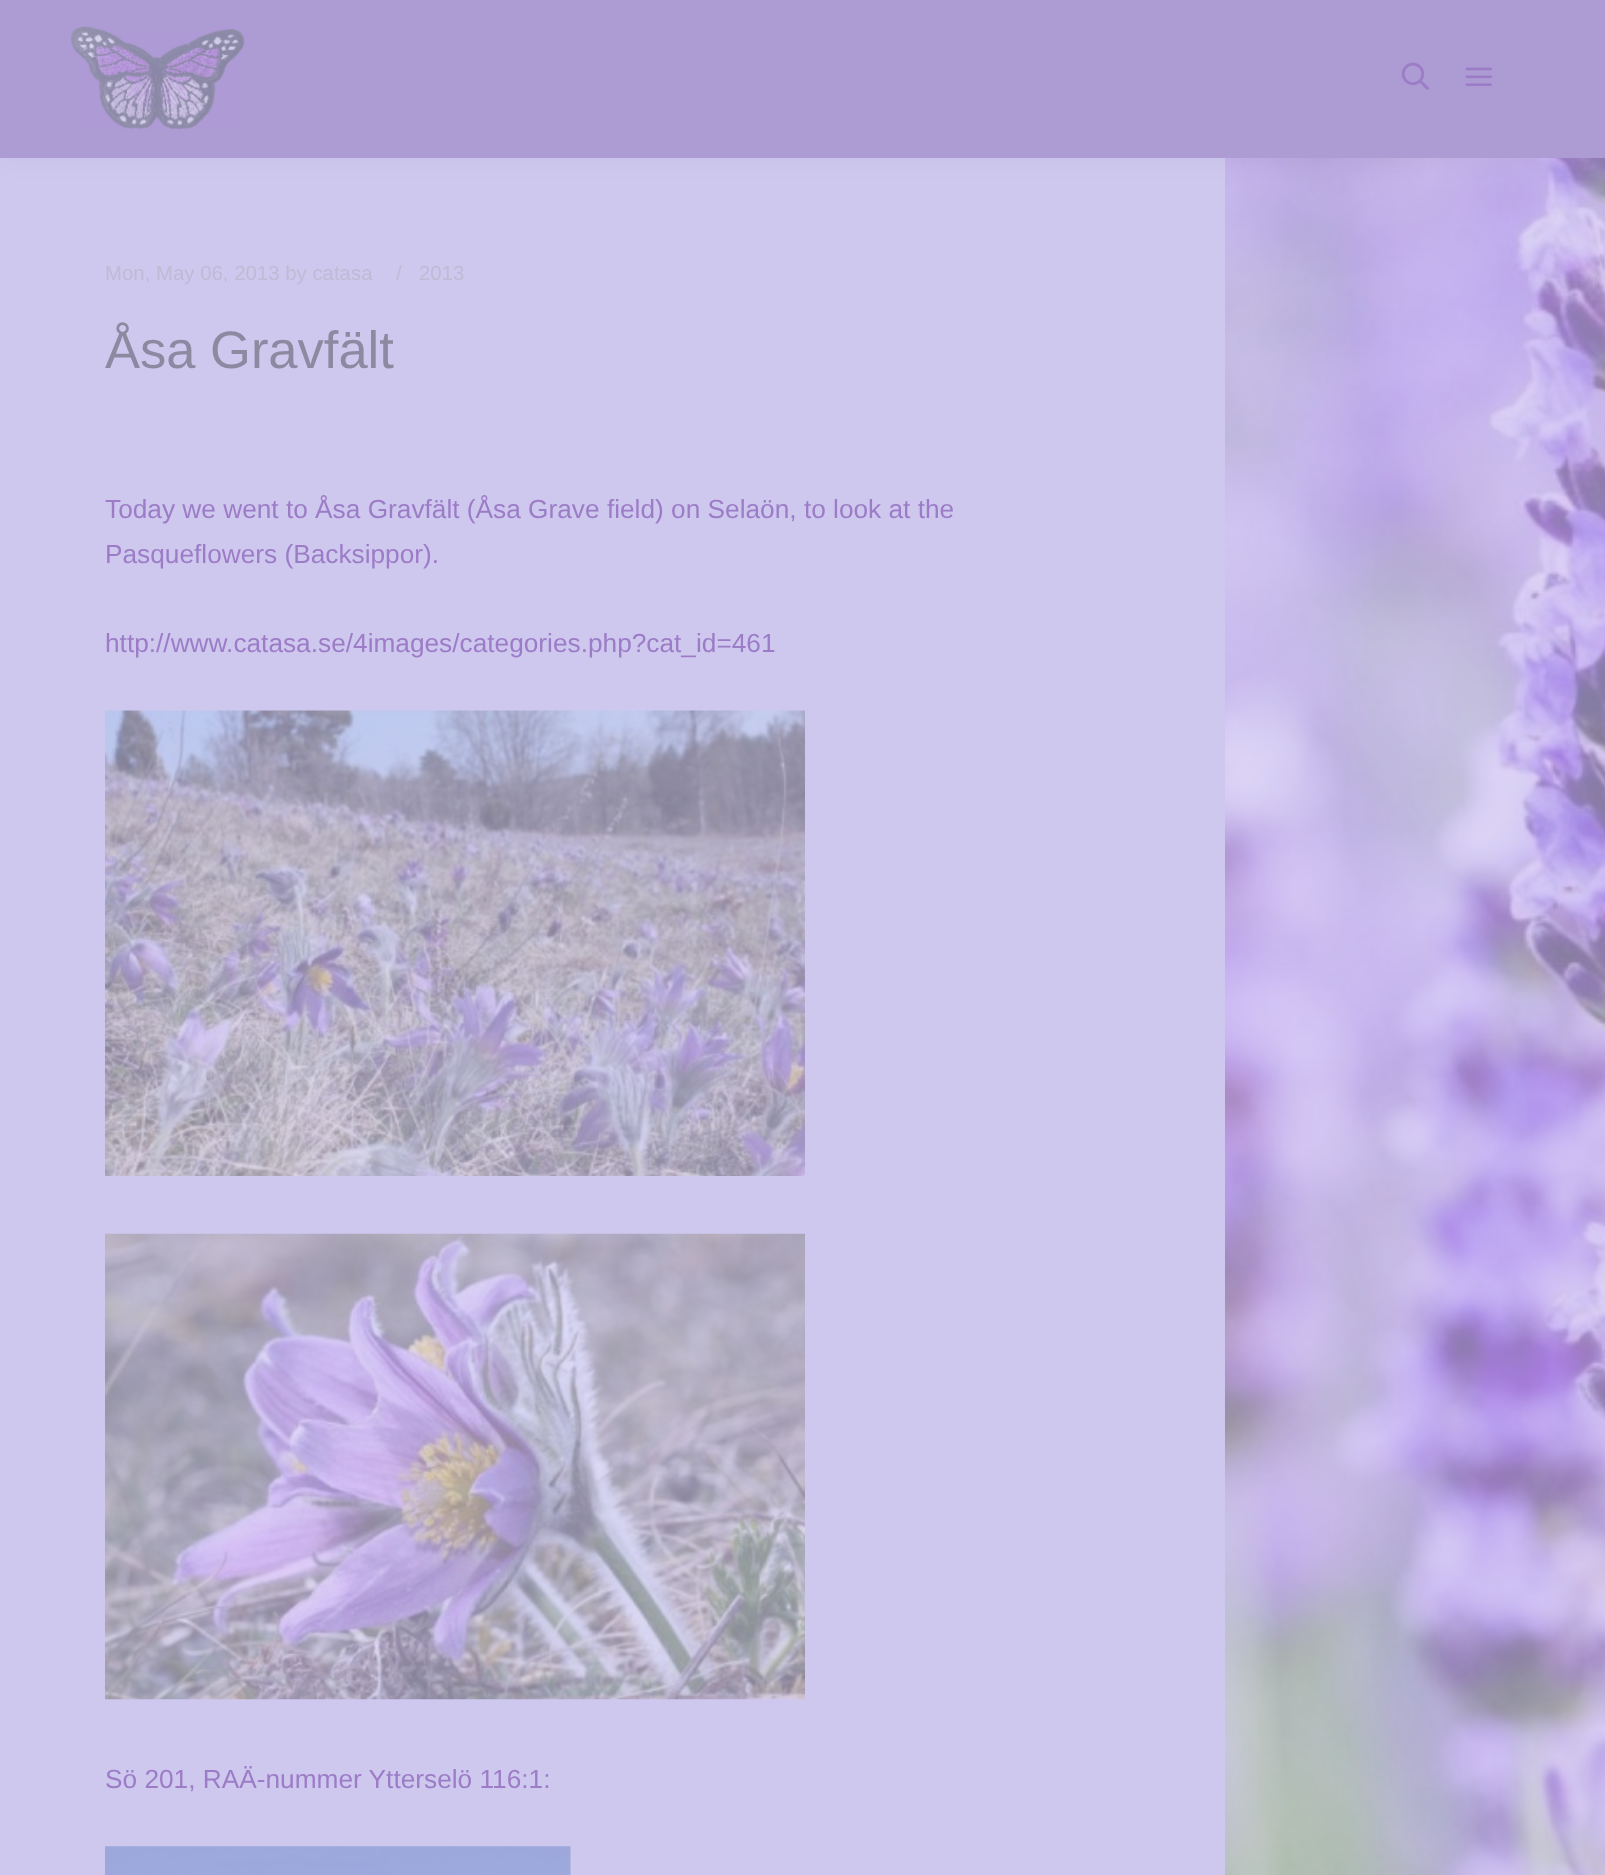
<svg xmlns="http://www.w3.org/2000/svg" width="1605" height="1875">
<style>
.a{font:20.4px Liberation Sans;fill:#bfbbd4}
.b{font:52.5px Liberation Sans;fill:#8d89a1}
.c{font:26.25px Liberation Sans;fill:#9c7cc6}
</style>
<rect width="100%" height="100%" fill="#fff"/>
<path fill="#cec8ef" d="M0 158h1225v1717H0z"/>
<image href="7.png" x="1225" y="158" width="380" height="1717"/>
<path fill="#807c9417" filter="blur(10.5px)" d="M0 0h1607v158H0z"/>
<path fill="#ad9bd4" d="M0 0h1605v158H0z"/>
<image href="1.png" x="70" y="26" width="175" height="104"/>
<image href="2.png" x="1401" y="62" width="29" height="28"/>
<image href="3.png" x="1465" y="67" width="27" height="19"/>
<image href="4.png" x="105" y="710" width="700" height="466"/>
<image href="5.png" x="105" y="1233" width="700" height="467"/>
<image href="6.png" x="105" y="1846" width="466" height="29"/>
<text class="a" x="105" y="280">Mon, May 06, 2013 by catasa</text>
<text class="a" x="396" y="280">/</text>
<text class="a" x="419" y="280">2013</text>
<text class="b" x="105" y="368">Åsa Gravfält</text>
<text class="c" x="105" y="518">Today we went to Åsa Gravfält (Åsa Grave field) on Selaön, to look at the</text>
<text class="c" x="105" y="563">Pasqueflowers (Backsippor).</text>
<text class="c" x="105" y="652">http://www.catasa.se/4images/categories.php?cat_id=461</text>
<text class="c" x="105" y="1788">Sö 201, RAÄ-nummer Ytterselö 116:1:</text>
</svg>
